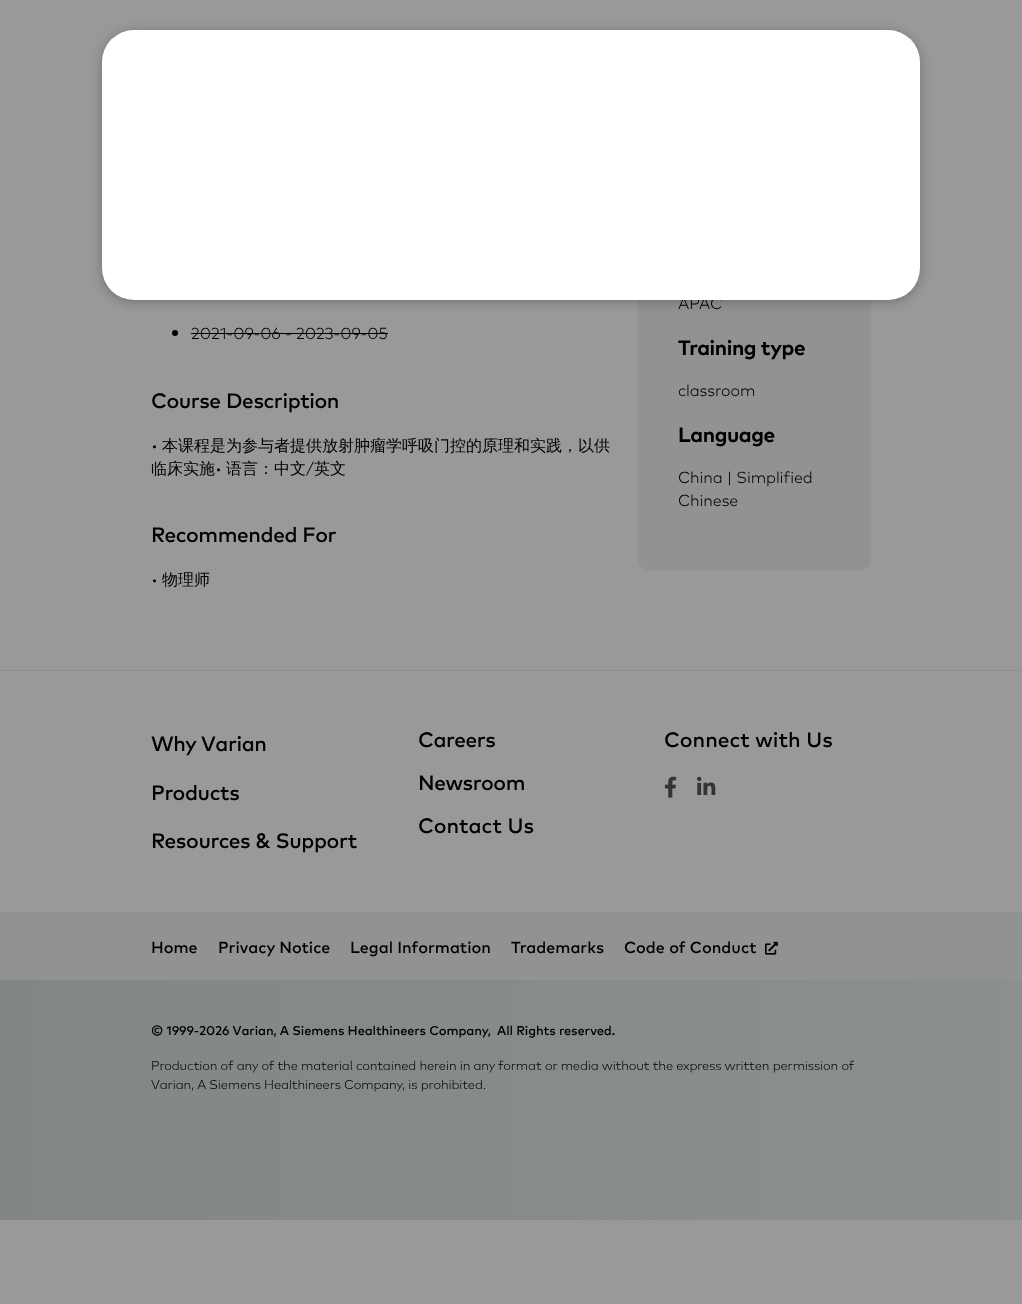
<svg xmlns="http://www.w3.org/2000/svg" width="1022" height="1304">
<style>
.a{font:300 16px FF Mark;fill:#000}
.b{font:500 20.9px FF Mark;letter-spacing:-0.4px;fill:#000}
.c{font:500 16px WenQuanYi Zen Hei;fill:#000}
.d{font:300 16px FF Mark;letter-spacing:-0.11px;fill:#000}
.e{font:bold 20.9px FF Mark;letter-spacing:-0.4px;fill:#000}
.f{font:500 20.9px FF Mark;fill:#000}
.g{font:500 16px FF Mark;fill:#000}
.h{font:500 12.8px FF Mark;letter-spacing:-0.11px;fill:#000}
.i{font:300 12.8px FF Mark;letter-spacing:-0.11px;fill:#000}
</style>
<defs>
<linearGradient id="g1" gradientUnits="userSpaceOnUse" x1="1022" y1="1100" x2="0" y2="1100"><stop offset="0" stop-color="#8c8f90"/><stop offset="1" stop-color="#838687"/></linearGradient>
</defs>
<rect width="100%" height="100%" fill="#999"/>
<rect fill="#919292" x="638" y="100" width="233" height="471" rx="12"/>
<rect fill="#00000040" filter="blur(6px)" x="102" y="32" width="818" height="270" rx="32"/>
<circle fill="#000" cx="175" cy="333" r="3"/>
<path fill="#000" d="M191 333h197v1H191z"/>
<path fill="#8c8f90" d="M0 670h1022v1H0z"/>
<image href="1.png" x="664" y="776" width="13" height="22"/>
<image href="2.png" x="697" y="776" width="19" height="19"/>
<path fill="#919292" d="M0 912h1022v68H0z"/>
<image href="3.png" x="765" y="941" width="13" height="14"/>
<path fill="url(#g1)" d="M0 980h1022v240H0z"/>
<text class="a" x="191" y="339">2021-09-06 - 2023-09-05</text>
<text class="b" x="151" y="408">Course Description</text>
<text class="a" x="151" y="451">•</text>
<text class="c" x="162" y="451">本课程是为参与者提供放射肿瘤学呼吸门控的原理和实践，以供</text>
<text class="c" x="151" y="474">临床实施</text>
<text class="a" x="215" y="474">•</text>
<text class="c" x="226" y="474">语言：中文</text>
<text class="a" x="306" y="474">/</text>
<text class="c" x="314" y="474">英文</text>
<text class="b" x="151" y="542">Recommended For</text>
<text class="a" x="151" y="585">•</text>
<text class="c" x="162" y="585">物理师</text>
<text class="d" x="678" y="309">APAC</text>
<rect fill="#fff" x="102" y="30" width="818" height="270" rx="32"/>
<text class="e" x="678" y="355">Training type</text>
<text class="d" x="678" y="396">classroom</text>
<text class="e" x="678" y="442">Language</text>
<text class="d" x="678" y="483">China | Simplified</text>
<text class="d" x="678" y="506">Chinese</text>
<text class="b" x="151" y="751">Why Varian</text>
<text class="b" x="151" y="800">Products</text>
<text class="b" x="151" y="848">Resources &amp; Support</text>
<text class="b" x="418" y="747">Careers</text>
<text class="b" x="418" y="790">Newsroom</text>
<text class="f" x="418" y="833">Contact Us</text>
<text class="f" x="664" y="747">Connect with Us</text>
<text class="g" x="151" y="953">Home</text>
<text class="g" x="218" y="953">Privacy Notice</text>
<text class="g" x="350" y="953">Legal Information</text>
<text class="g" x="511" y="953">Trademarks</text>
<text class="g" x="624" y="953">Code of Conduct</text>
<text class="h" x="151" y="1035">© 1999-</text>
<text class="h" x="199" y="1035">2026 Varian, A Siemens Healthineers Company,</text>
<text class="h" x="497" y="1035">All Rights reserved.</text>
<text class="i" x="151" y="1070">Production of any of the material contained herein in any format or media without the express written permission of</text>
<text class="i" x="151" y="1089">Varian, A Siemens Healthineers Company, is prohibited.</text>
</svg>
